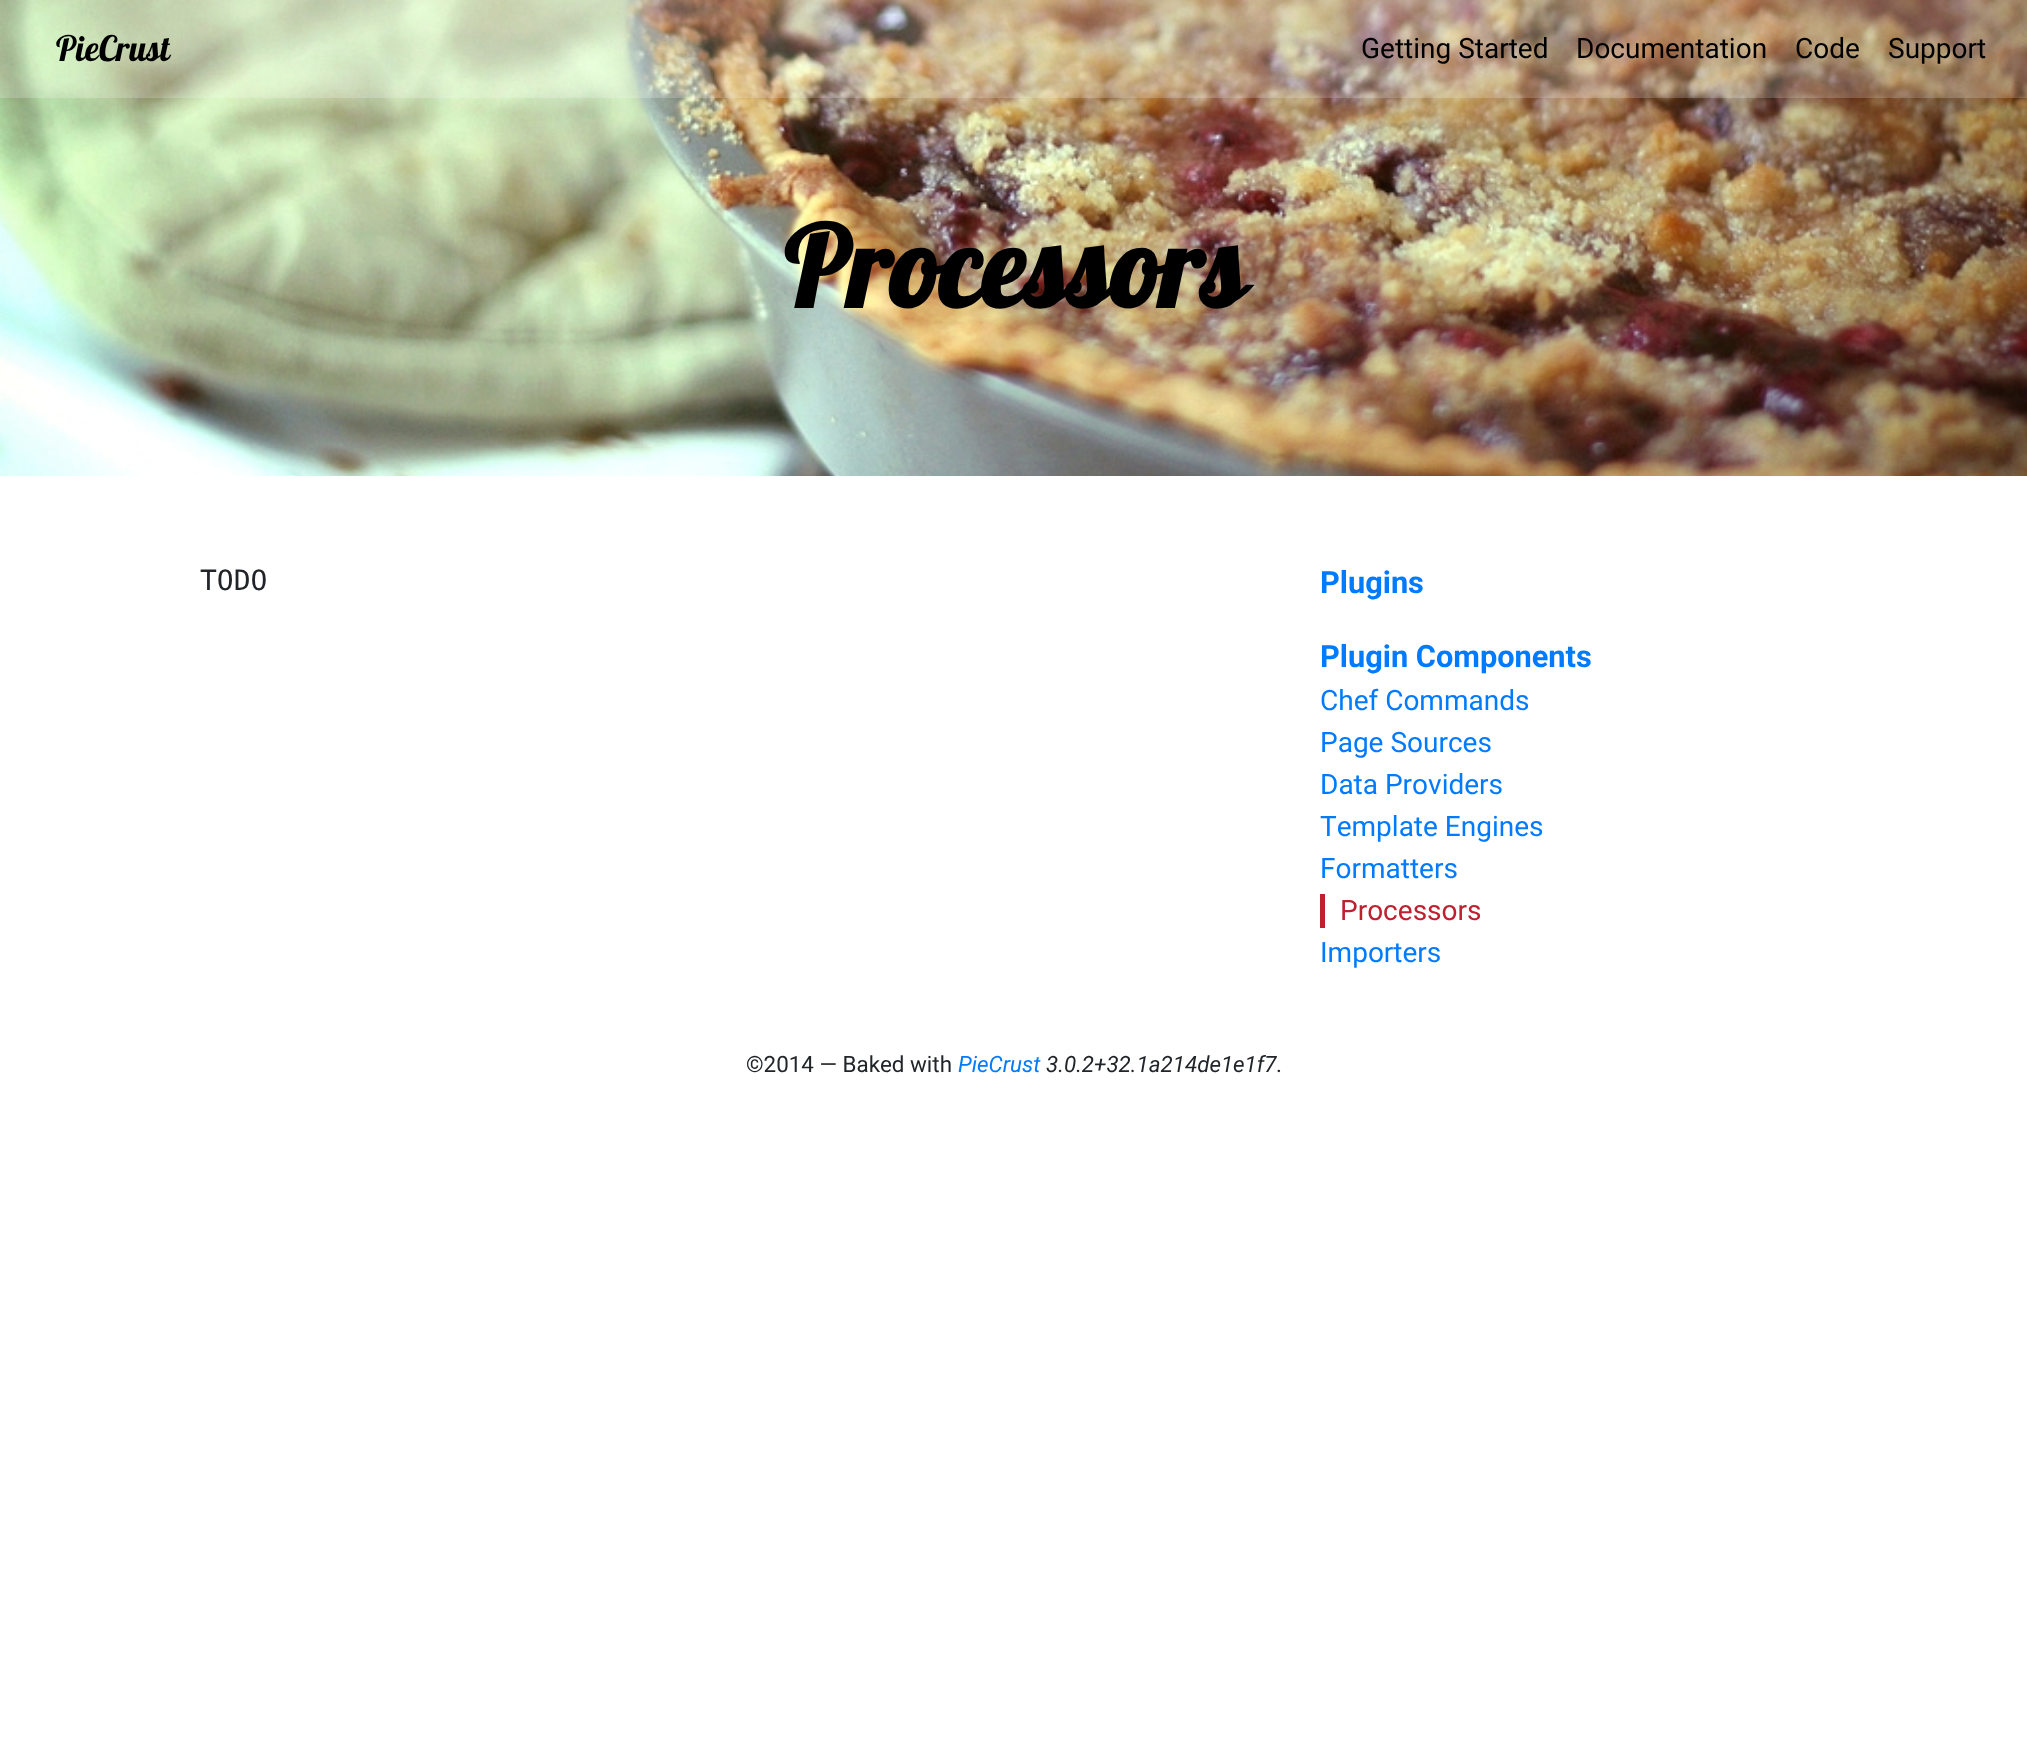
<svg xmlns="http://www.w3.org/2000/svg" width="2027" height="1753">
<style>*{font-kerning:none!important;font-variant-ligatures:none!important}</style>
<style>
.a{font:35px Lobster;fill:#000}
.b{font:28px Roboto;fill:#000}
.c{font:bold 112px Lobster;fill:#000}
.d{font:28px DejaVu Sans Mono;fill:#212529}
.e{font:bold 30.75px Roboto;fill:#007bff}
.f{font:28px Roboto;fill:#007bff}
.g{font:28px Roboto;fill:#bd2130}
.h{font:22.4px Roboto;fill:#212529}
.i{font:italic 22.4px Roboto;fill:#007bff}
.j{font:italic 22.4px Roboto;fill:#212529}
</style>
<rect width="100%" height="100%" fill="#fff"/>
<image href="1.png" x="0" y="0" width="2027" height="476"/>
<path fill="#ffffff33" d="M0 0h2027v98H0z"/>
<path fill="#bd2130" d="M1320 894h5v34H1320z"/>
<text class="a" x="56" y="61">PieCrust</text>
<text class="b" x="1361" y="58">Getting Started</text>
<text class="b" x="1576" y="58">Documentation</text>
<text class="b" x="1795" y="58">Code</text>
<text class="b" x="1888" y="58">Support</text>
<text class="c" x="784" y="308">Processors</text>
<text class="d" x="200" y="590">TODO</text>
<text class="e" x="1320" y="593">Plugins</text>
<text class="e" x="1320" y="667">Plugin Components</text>
<text class="f" x="1320" y="710">Chef Commands</text>
<text class="f" x="1320" y="752">Page Sources</text>
<text class="f" x="1320" y="794">Data Providers</text>
<text class="f" x="1320" y="836">Template Engines</text>
<text class="f" x="1320" y="878">Formatters</text>
<text class="g" x="1340" y="920">Processors</text>
<text class="f" x="1320" y="962">Importers</text>
<text class="h" x="746" y="1072">©2014 — Baked with</text>
<text class="i" x="958" y="1072">PieCrust</text>
<text class="j" x="1046" y="1072">3.0.2+32.1a214de1e1f7</text>
<text class="h" x="1276" y="1072">.</text>
</svg>
